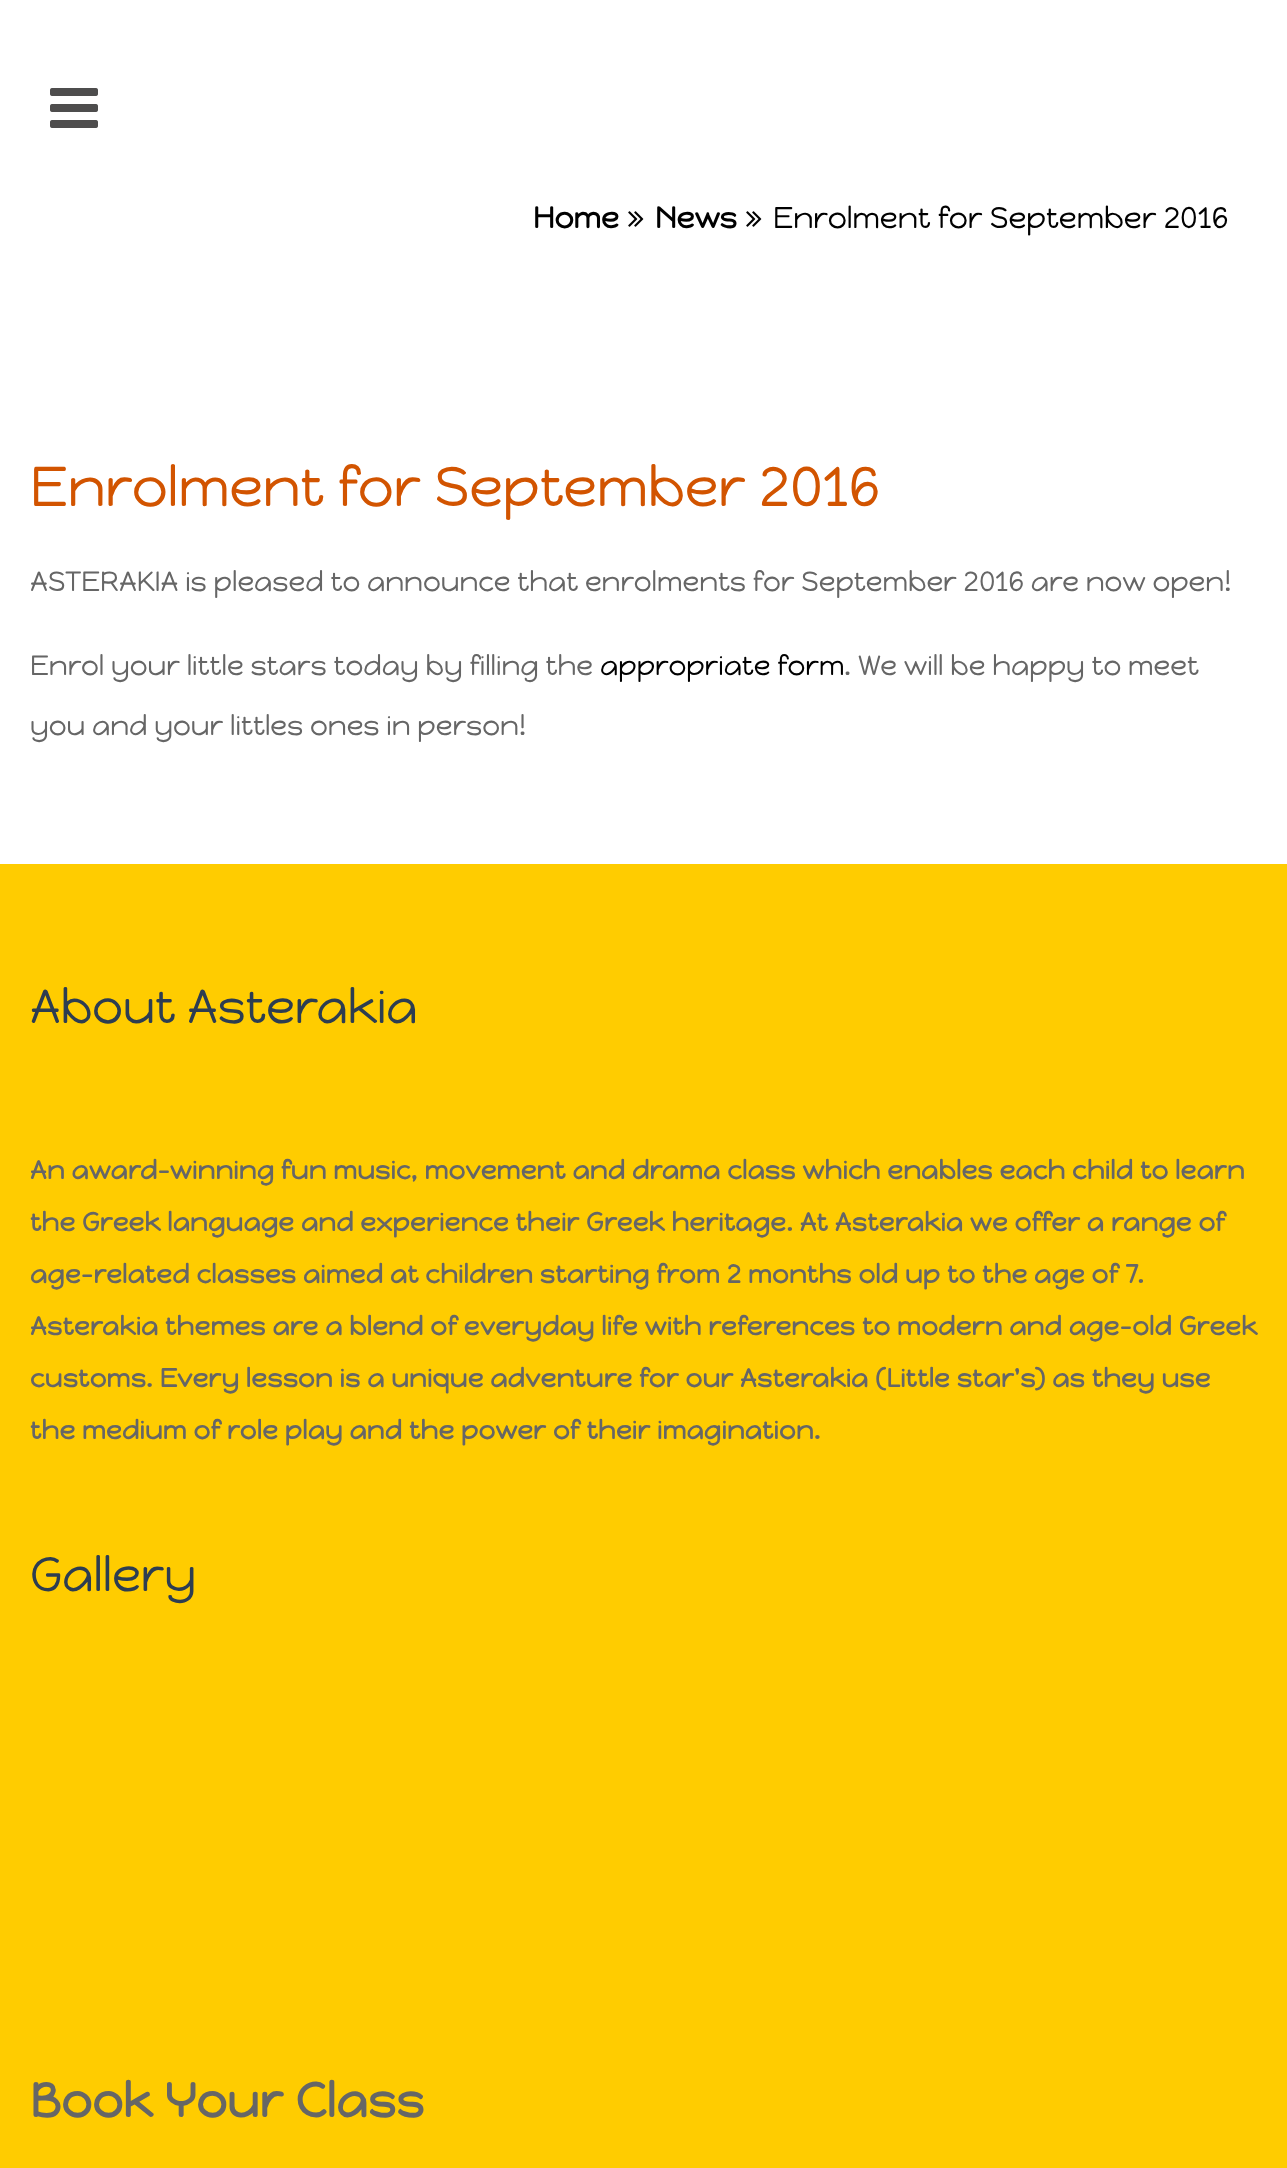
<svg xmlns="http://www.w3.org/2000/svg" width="1287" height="2168">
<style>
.a{font:bold 30px Happy Monkey;fill:#000}
.b{font:30px Happy Monkey;fill:#000}
.c{font:56px Happy Monkey;fill:#d25400}
.d{font:28px Happy Monkey;fill:#666}
.e{font:28px Happy Monkey;fill:#000}
.f{font:48px Happy Monkey;fill:#2d3d51}
.g{font:bold 26px Happy Monkey;letter-spacing:0.4px;fill:#666}
.h{font:bold 48px Happy Monkey;letter-spacing:0.4px;fill:#666}
</style>
<rect width="100%" height="100%" fill="#fff"/>
<image href="1.png" x="50" y="88" width="48" height="40"/>
<image href="2.png" x="628" y="211" width="16" height="16"/>
<image href="2.png" x="746" y="211" width="16" height="16"/>
<path fill="#fc0" d="M0 864h1287v1304H0z"/>
<text class="a" x="533" y="228">Home</text>
<text class="a" x="655" y="228">News</text>
<text class="b" x="773" y="228">Enrolment for September 2016</text>
<text class="c" x="30" y="506">Enrolment for September 2016</text>
<text class="d" x="30" y="591">ASTERAKIA is pleased to announce that enrolments for September 2016 are now open!</text>
<text class="d" x="30" y="675">Enrol your little stars today by filling the</text>
<text class="e" x="600" y="675">appropriate form</text>
<text class="d" x="844" y="675">. We will be happy to meet</text>
<text class="d" x="30" y="735">you and your littles ones in person!</text>
<text class="f" x="30" y="1023">About Asterakia</text>
<text class="g" x="30" y="1179">An award-winning fun music, movement and drama class which enables each child to learn</text>
<text class="g" x="30" y="1231">the Greek language and experience their Greek heritage. At Asterakia we offer a range of</text>
<text class="g" x="30" y="1283">age-related classes aimed at children starting from 2 months old up to the age of 7.</text>
<text class="g" x="30" y="1335">Asterakia themes are a blend of everyday life with references to modern and age-old Greek</text>
<text class="g" x="30" y="1387">customs. Every lesson is a unique adventure for our Asterakia (Little star's) as they use</text>
<text class="g" x="30" y="1439">the medium of role play and the power of their imagination.</text>
<text class="f" x="30" y="1591">Gallery</text>
<text class="h" x="30" y="2117">Book Your Class</text>
</svg>
